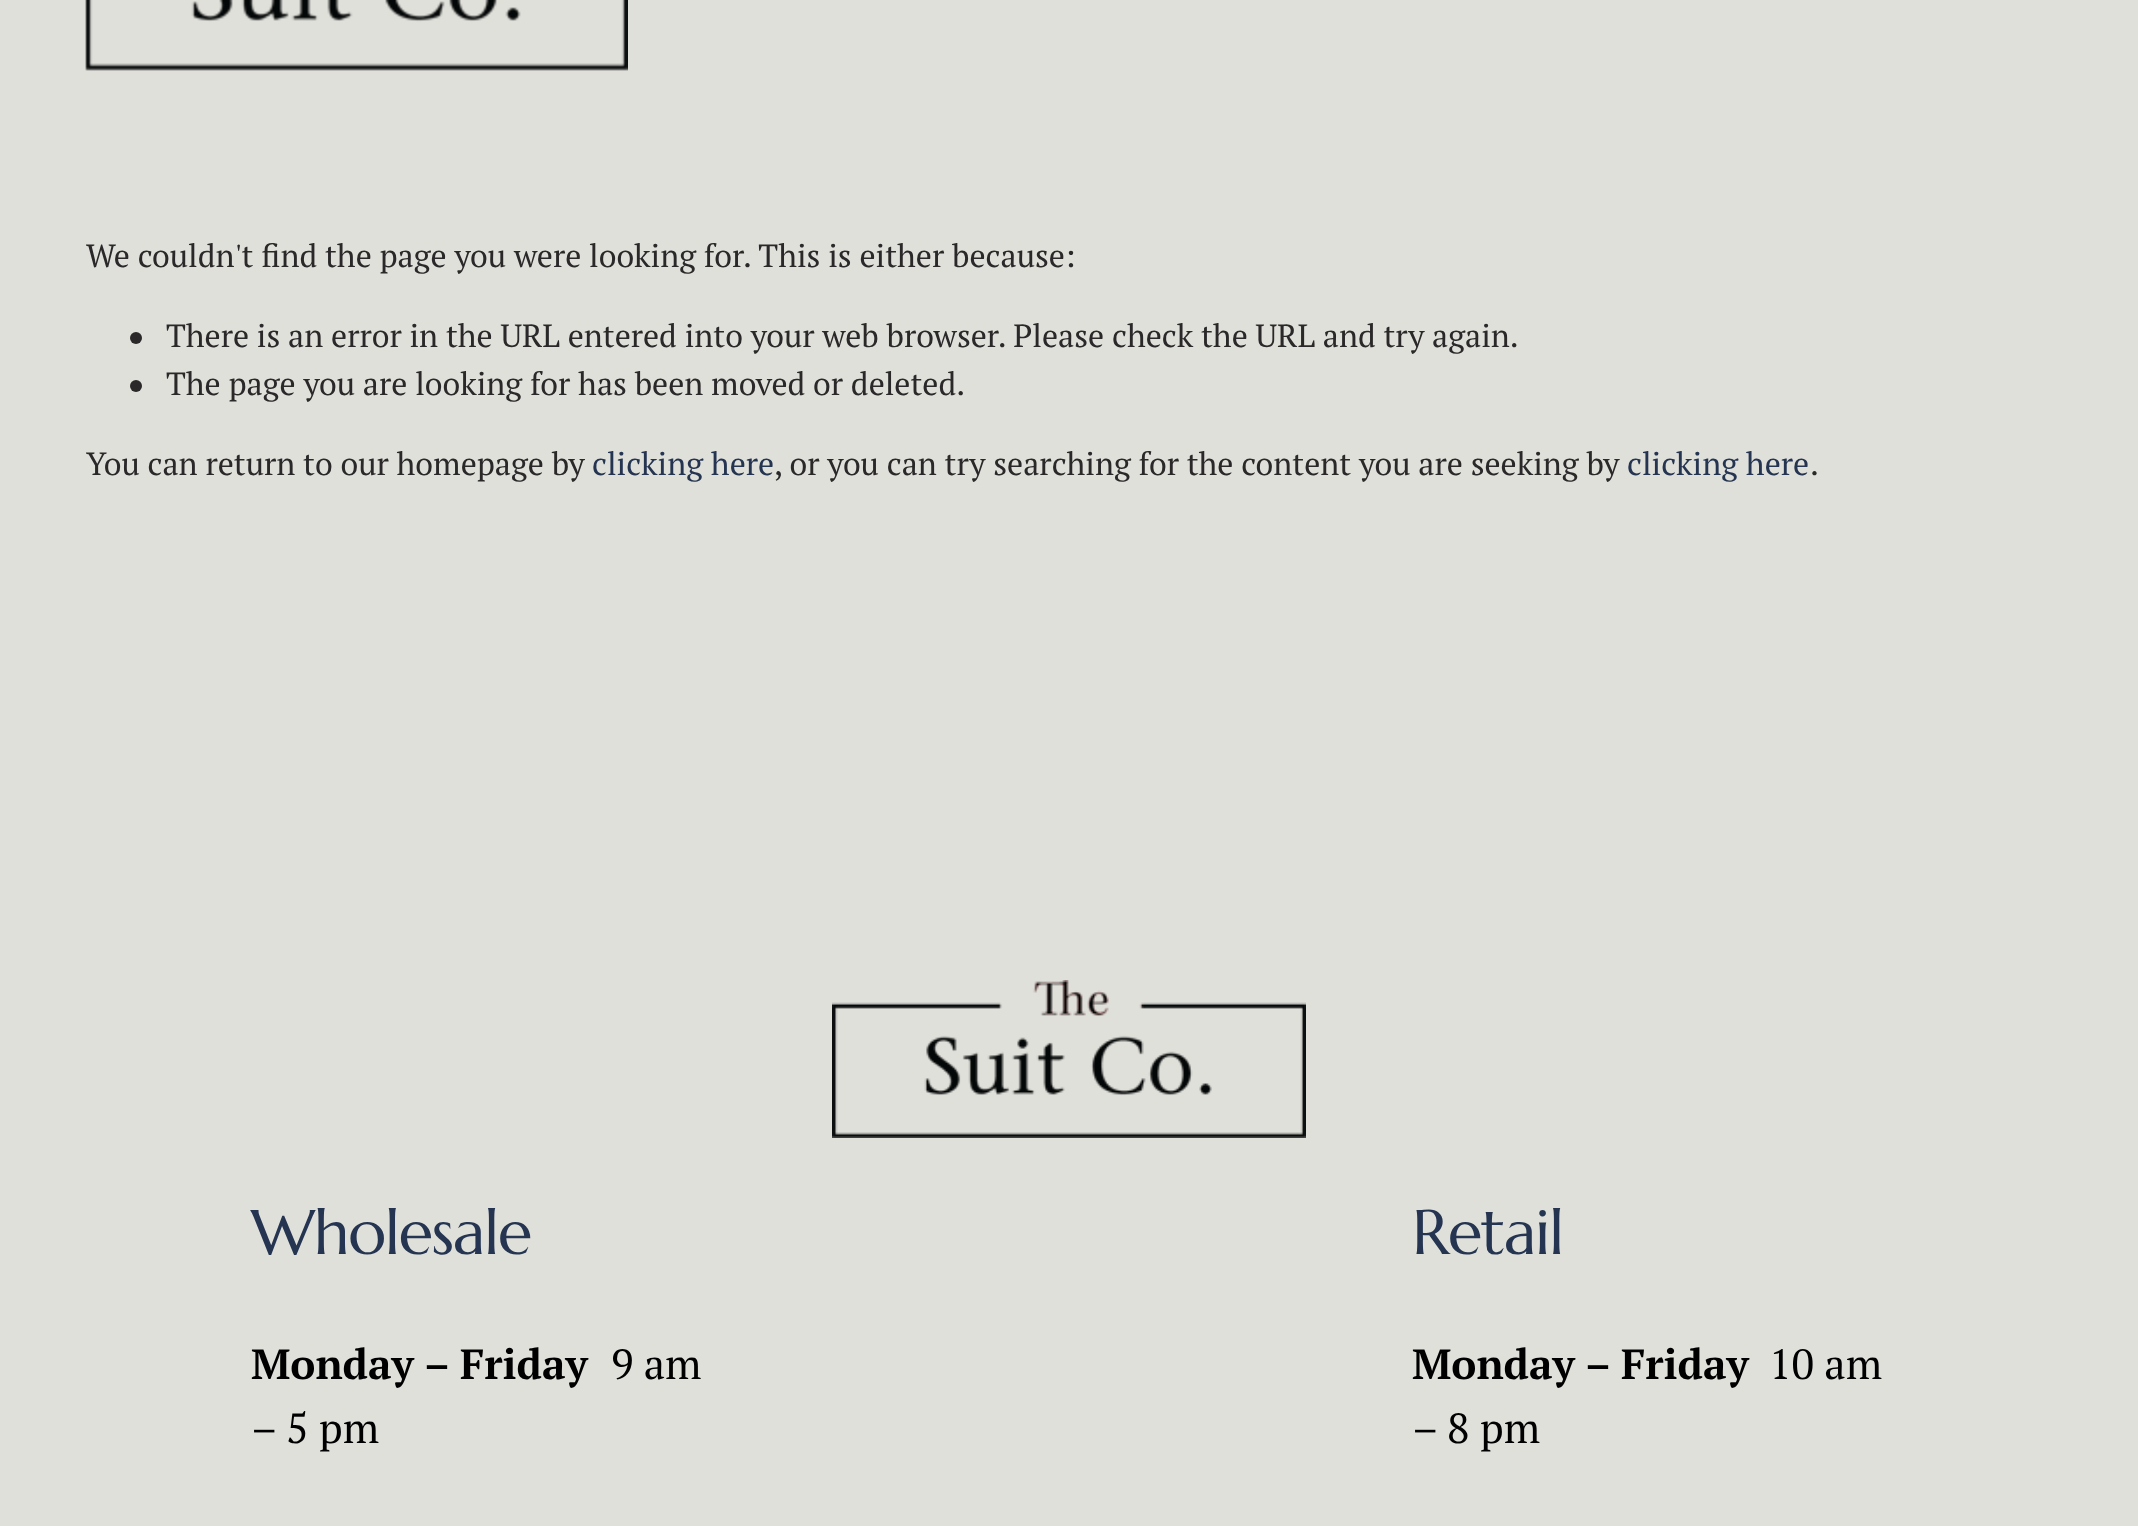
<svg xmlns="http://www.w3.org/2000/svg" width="2138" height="1526">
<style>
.a{font:32px PT Serif;fill:#2a2829}
.b{font:32px PT Serif;fill:#253551}
.c{font:63px Marcellus;letter-spacing:-1.25px;fill:#253551}
.d{font:bold 42.25px PT Serif;fill:#000}
.e{font:42.25px PT Serif;fill:#000}
</style>
<rect width="100%" height="100%" fill="#e0e0db"/>
<image href="1.png" x="85" y="0" width="543" height="71"/>
<circle fill="#2a2829" cx="136" cy="338" r="6"/>
<circle fill="#2a2829" cx="136" cy="386" r="6"/>
<image href="2.png" x="832" y="980" width="474" height="158"/>
<text class="a" x="86" y="267">We couldn't find the page you were looking for. This is either because:</text>
<text class="a" x="166" y="347">There is an error in the URL entered into your web browser. Please check the URL and try again.</text>
<text class="a" x="166" y="395">The page you are looking for has been moved or deleted.</text>
<text class="a" x="86" y="475">You can return to our homepage by</text>
<text class="b" x="592" y="475">clicking here</text>
<text class="a" x="774" y="475">, or you can try searching for the content you are seeking by</text>
<text class="b" x="1627" y="475">clicking here</text>
<text class="a" x="1810" y="475">.</text>
<text class="c" x="251" y="1254">Wholesale</text>
<text class="d" x="251" y="1379">Monday – Friday</text>
<text class="e" x="611" y="1379">9 am</text>
<text class="e" x="251" y="1443">– 5 pm</text>
<text class="c" x="1412" y="1254">Retail</text>
<text class="d" x="1412" y="1379">Monday – Friday</text>
<text class="e" x="1769" y="1379">10 am</text>
<text class="e" x="1412" y="1443">– 8 pm</text>
</svg>
